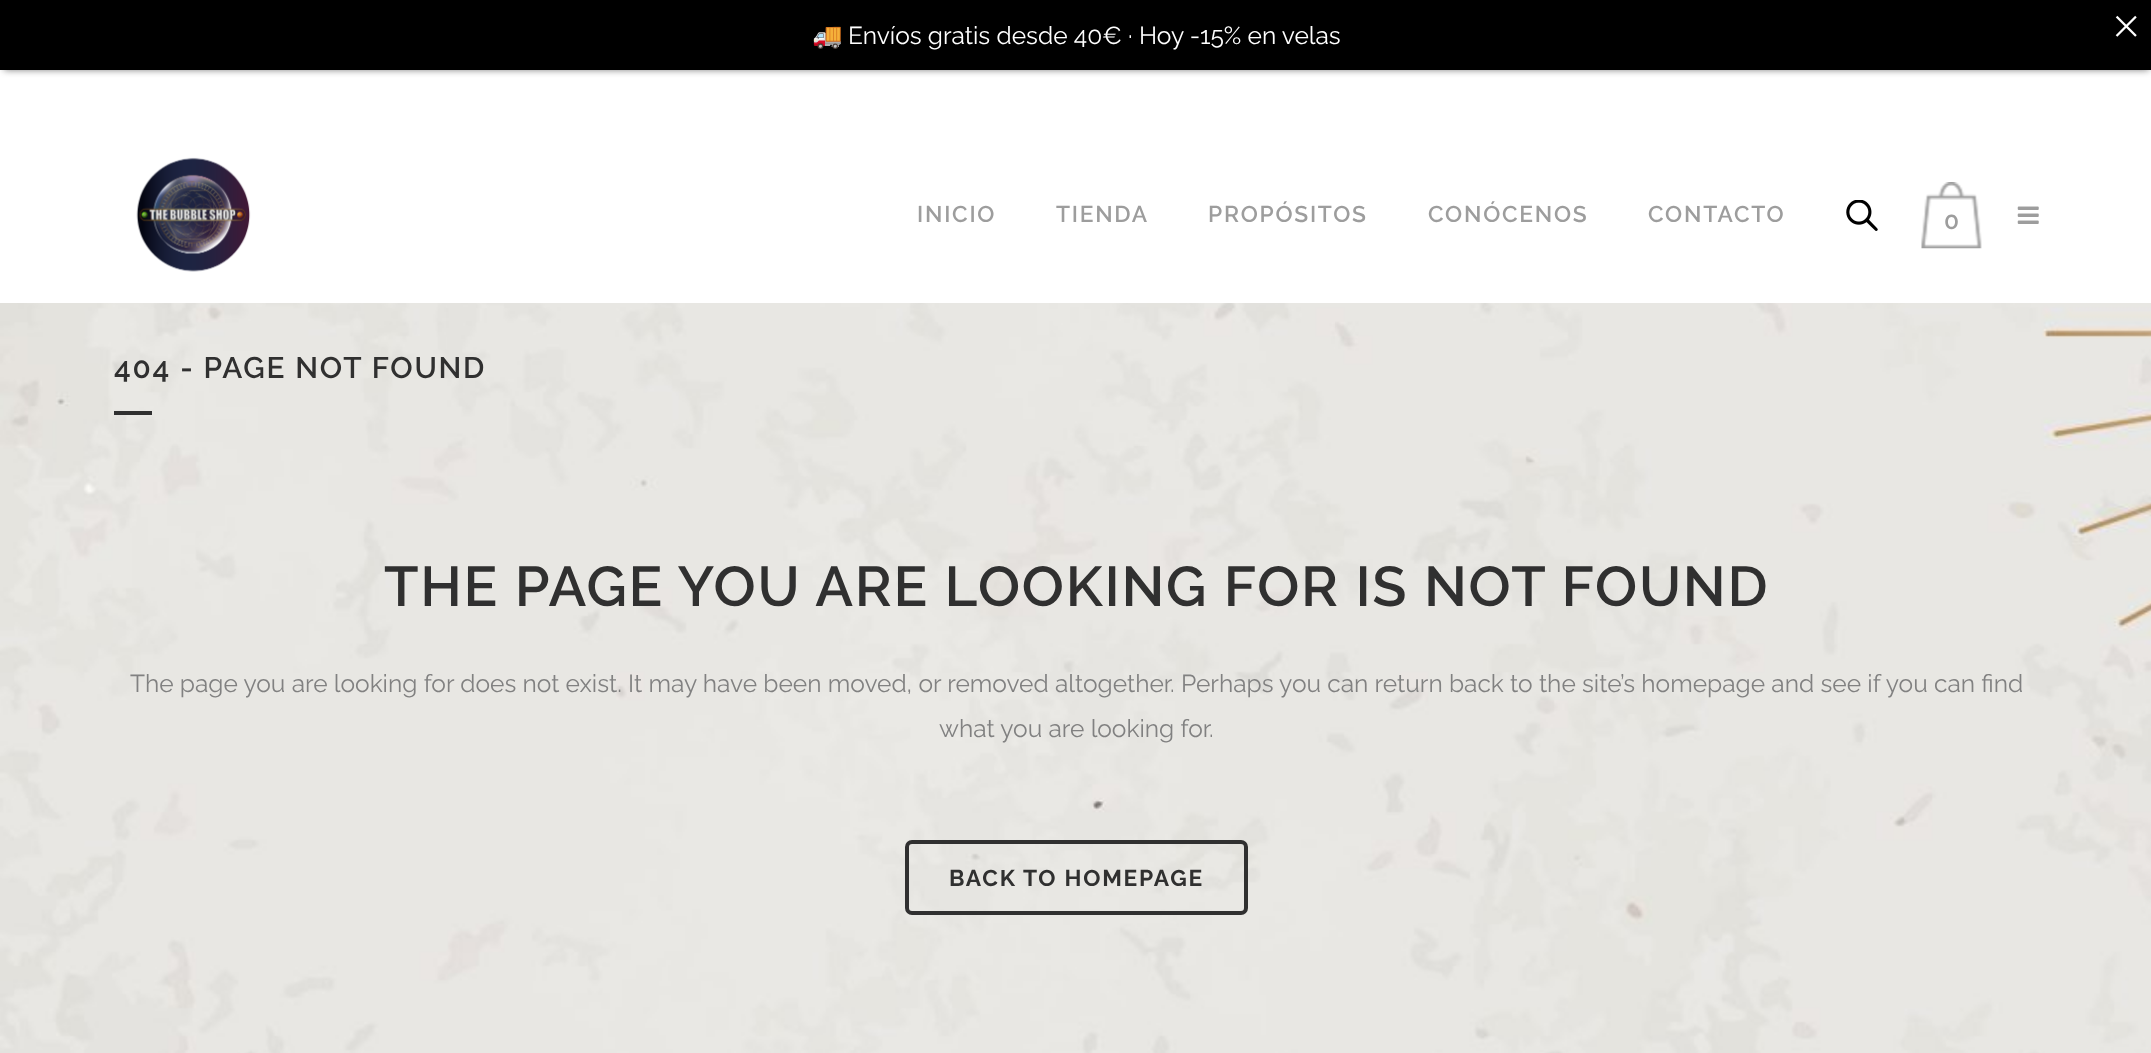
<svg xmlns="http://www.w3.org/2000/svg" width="2151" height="1053">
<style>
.a{font:24.5px Noto Color Emoji;fill:#fff}
.b{font:24.5px Raleway;fill:#fff}
.c{font:600 22.75px Raleway;letter-spacing:1.75px;fill:#9d9d9d}
.d{font:600 24.5px Raleway;fill:#9d9d9d}
.e{font:600 29.75px Raleway;letter-spacing:1.75px;fill:#303030}
.f{font:600 56px Raleway;letter-spacing:1.75px;fill:#303030}
.g{font:24.5px Raleway;fill:#818181}
.h{font:bold 22.75px Raleway;letter-spacing:1.75px;fill:#303030}
</style>
<rect width="100%" height="100%" fill="#fff"/>
<image href="1.png" x="0" y="303" width="2151" height="750"/>
<path fill="#00000080" filter="blur(3.5px)" d="M4 7h2145v63H4z"/>
<path fill="#000" d="M0 0h2151v70H0z"/>
<image href="2.png" x="2115" y="15" width="22" height="22"/>
<image href="3.png" x="136" y="157" width="115" height="115"/>
<image href="4.png" x="1846" y="200" width="32" height="31"/>
<image href="5.png" x="1921" y="182" width="61" height="67"/>
<image href="6.png" x="2017" y="206" width="22" height="18"/>
<path fill="#303030" d="M114 411h38v4H114z"/>
<rect fill="none" stroke="#303030" stroke-width="4" x="907" y="842" width="339" height="71" rx="5"/>
<text class="a" x="812" y="44">🚚</text>
<text class="b" x="848" y="44">Envíos gratis desde 40€ · Hoy -15% en velas</text>
<text class="c" x="917" y="222">INICIO</text>
<text class="c" x="1056" y="222">TIENDA</text>
<text class="c" x="1208" y="222">PROPÓSITOS</text>
<text class="c" x="1428" y="222">CONÓCENOS</text>
<text class="c" x="1648" y="222">CONTACTO</text>
<text class="d" x="1944" y="229">0</text>
<text class="e" x="114" y="378">404 - PAGE NOT FOUND</text>
<text class="f" x="384" y="606">THE PAGE YOU ARE LOOKING FOR IS NOT FOUND</text>
<text class="g" x="130" y="692">The page you are looking for does not exist. It may have been moved, or removed altogether. Perhaps you can return back to the site’s homepage and see if you can find</text>
<text class="g" x="939" y="737">what you are looking for.</text>
<text class="h" x="949" y="886">BACK TO HOMEPAGE</text>
</svg>
